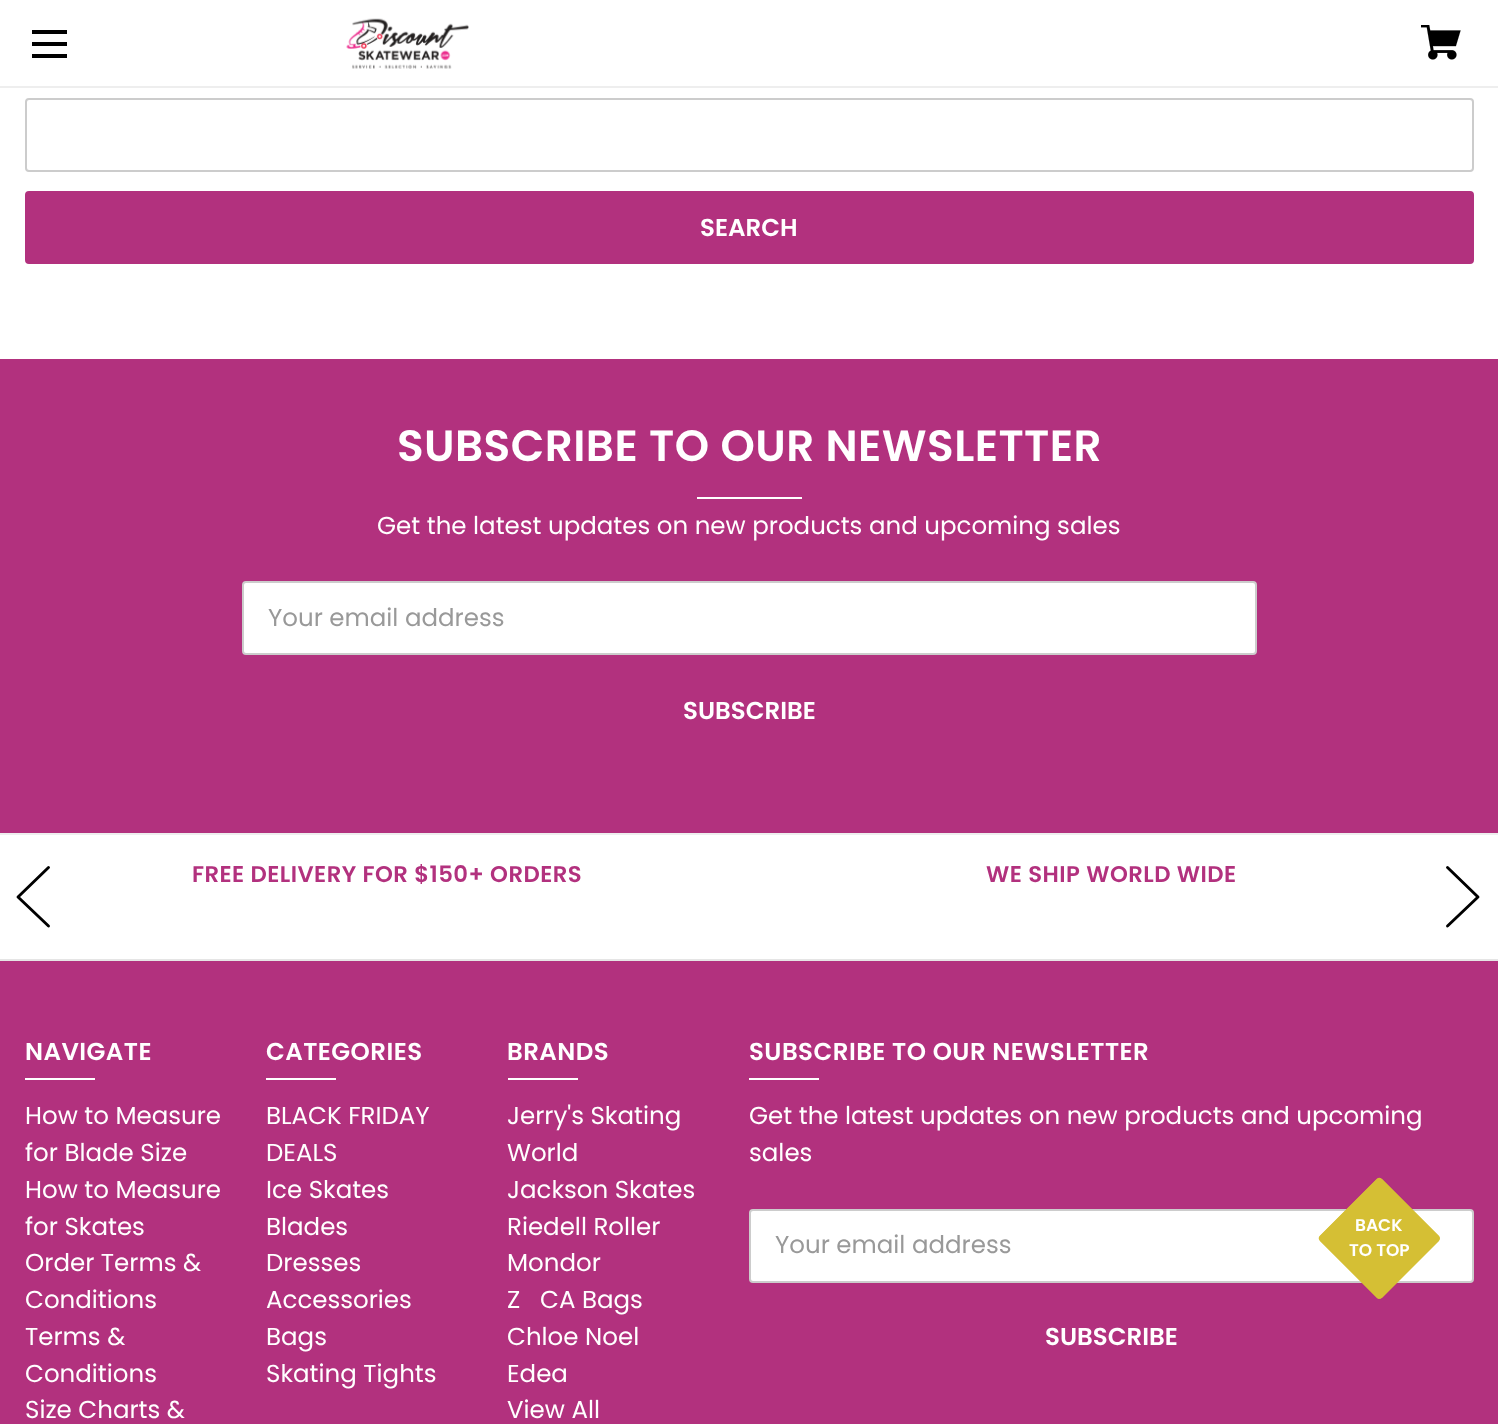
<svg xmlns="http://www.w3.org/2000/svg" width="1498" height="1424">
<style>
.a{font:600 24.5px Poppins;fill:#fff}
.b{font:600 43.75px Poppins;letter-spacing:0.45px;fill:#fff}
.c{font:24.5px Poppins;fill:#fff}
.d{font:24.5px Poppins;fill:#999}
.e{font:600 22.75px Poppins;letter-spacing:0.45px;fill:#b2317e}
.f{font:600 24.5px Poppins;letter-spacing:0.45px;fill:#fff}
.g{font:600 17px Poppins;fill:#fff}
</style>
<rect width="100%" height="100%" fill="#fff"/>
<path fill="#eee" d="M0 86h1498v2H0z"/>
<path fill="#000" d="M32 42h35v4H32z"/>
<path fill="#000" d="M32 30h35v4H32z"/>
<path fill="#000" d="M32 54h35v4H32z"/>
<image href="1.png" x="346" y="18" width="123" height="51"/>
<image href="2.png" x="1421" y="25" width="40" height="35"/>
<rect fill="none" stroke="#ccc" stroke-width="2" x="26" y="99" width="1447" height="72" rx="3"/>
<rect fill="#b2317e" stroke="#b2317e" stroke-width="2" x="26" y="192" width="1447" height="71" rx="3"/>
<path fill="#b2317e" d="M0 359h1498v474H0z"/>
<path fill="#fff" d="M697 497h105v2H697z"/>
<rect fill="#fff" stroke="#ccc" stroke-width="2" x="243" y="582" width="1013" height="72" rx="3"/>
<path fill="#eee" d="M0 833h1498v2H0z"/>
<path fill="none" stroke="#000" stroke-width="2.9" stroke-linecap="round" stroke-linejoin="round" d="M48.5 867.5l-30.5 29.5l30.5 29"/>
<path fill="none" stroke="#000" stroke-width="2.9" stroke-linecap="round" stroke-linejoin="round" d="M1447.5 867.5l30.5 29.5l-30.5 29"/>
<path fill="#b2317e" d="M0 961h1498v463H0z"/>
<path fill="#e5e5e5" d="M0 959h1498v2H0z"/>
<path fill="#fff" d="M25 1078h70v2H25z"/>
<path fill="#fff" d="M266 1078h70v2H266z"/>
<path fill="#fff" d="M508 1078h70v2H508z"/>
<path fill="#fff" d="M749 1078h70v2H749z"/>
<rect fill="#fff" stroke="#ccc" stroke-width="2" x="750" y="1210" width="723" height="72" rx="3"/>
<path fill="#d5bf34" d="M1382 1179l57 57c1 1 1 3 0 5l-57 57c-2 1-4 1-5 0l-57-57c-1-2-1-4 0-5l57-57c1-1 3-1 5 0z"/>
<path fill="none" stroke="#d5bf34" stroke-width="1.8" d="M1381 1179.5l57 57c1 1 1 2.5 0 3.5l-57 57c-1 1-2.5 1-3.5 0l-57-57c-1-1-1-2.5 0-3.5l57-57c1-1 2.5-1 3.5 0z"/>
<text class="a" x="700" y="236">SEARCH</text>
<text class="b" x="397" y="461">SUBSCRIBE TO OUR NEWSLETTER</text>
<text class="c" x="377" y="534">Get the latest updates on new products and upcoming sales</text>
<text class="d" x="268" y="626">Your email address</text>
<text class="a" x="683" y="719">SUBSCRIBE</text>
<text class="e" x="192" y="882">FREE DELIVERY FOR $150+ ORDERS</text>
<text class="e" x="986" y="882">WE SHIP WORLD WIDE</text>
<text class="f" x="25" y="1060">NAVIGATE</text>
<text class="c" x="25" y="1124">How to Measure</text>
<text class="c" x="25" y="1161">for Blade Size</text>
<text class="c" x="25" y="1198">How to Measure</text>
<text class="c" x="25" y="1235">for Skates</text>
<text class="c" x="25" y="1271">Order Terms &amp;</text>
<text class="c" x="25" y="1308">Conditions</text>
<text class="c" x="25" y="1345">Terms &amp;</text>
<text class="c" x="25" y="1382">Conditions</text>
<text class="c" x="25" y="1418">Size Charts &amp;</text>
<text class="f" x="266" y="1060">CATEGORIES</text>
<text class="c" x="266" y="1124">BLACK FRIDAY</text>
<text class="c" x="266" y="1161">DEALS</text>
<text class="c" x="266" y="1198">Ice Skates</text>
<text class="c" x="266" y="1235">Blades</text>
<text class="c" x="266" y="1271">Dresses</text>
<text class="c" x="266" y="1308">Accessories</text>
<text class="c" x="266" y="1345">Bags</text>
<text class="c" x="266" y="1382">Skating Tights</text>
<text class="f" x="507" y="1060">BRANDS</text>
<text class="c" x="507" y="1124">Jerry's Skating</text>
<text class="c" x="507" y="1161">World</text>
<text class="c" x="507" y="1198">Jackson Skates</text>
<text class="c" x="507" y="1235">Riedell Roller</text>
<text class="c" x="507" y="1271">Mondor</text>
<text class="c" x="507" y="1308">Z</text>
<text class="c" x="540" y="1308">CA Bags</text>
<text class="c" x="507" y="1345">Chloe Noel</text>
<text class="c" x="507" y="1382">Edea</text>
<text class="c" x="507" y="1418">View All</text>
<text class="f" x="749" y="1060">SUBSCRIBE TO OUR NEWSLETTER</text>
<text class="c" x="749" y="1124">Get the latest updates on new products and upcoming</text>
<text class="c" x="749" y="1161">sales</text>
<text class="d" x="775" y="1253">Your email address</text>
<text class="a" x="1045" y="1345">SUBSCRIBE</text>
<text class="g" x="1355" y="1231">BACK</text>
<text class="g" x="1349" y="1256">TO TOP</text>
</svg>
